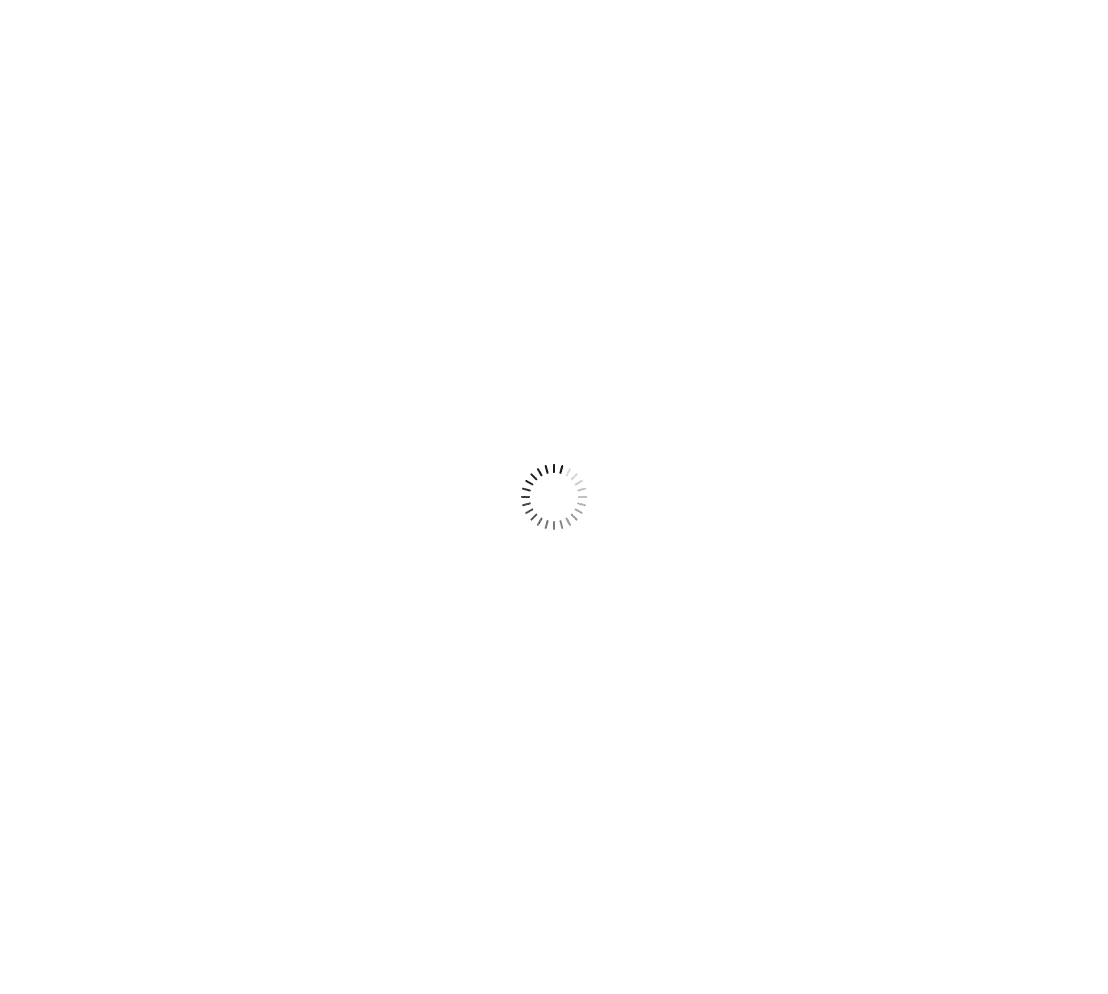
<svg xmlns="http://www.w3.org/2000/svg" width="1108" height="994">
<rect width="100%" height="100%" fill="#fff"/>
<image href="1.png" x="521" y="464" width="66" height="66"/>
</svg>
